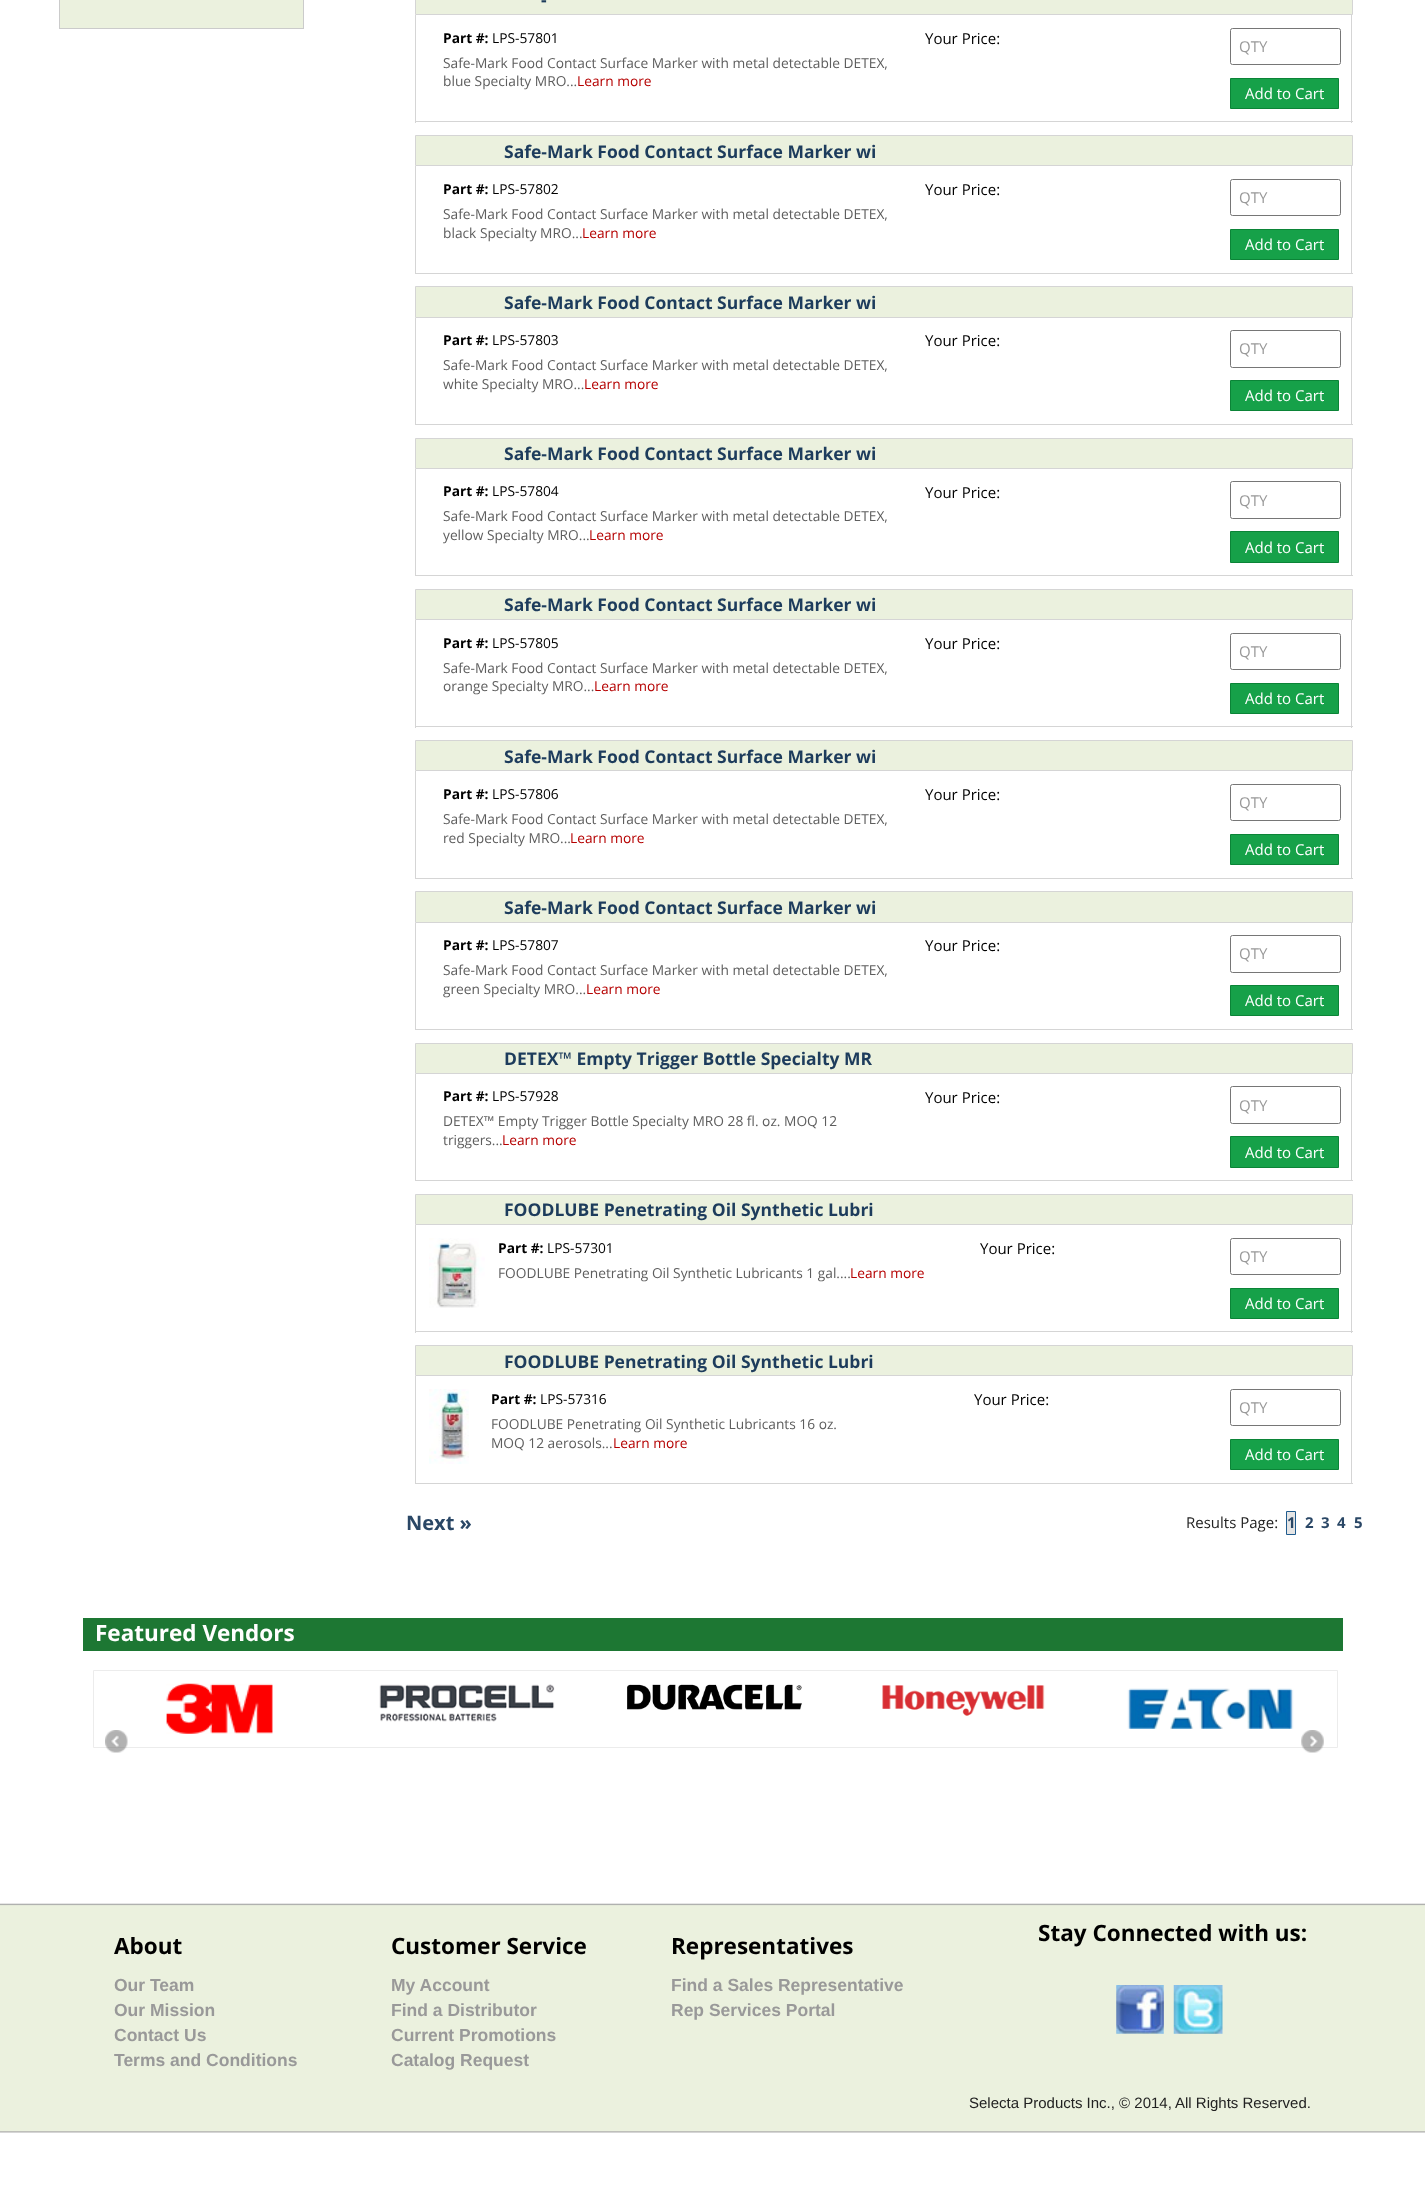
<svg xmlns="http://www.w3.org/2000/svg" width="1425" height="2186">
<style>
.a{font:bold 17.5px Open Sans;fill:#1d3c5c}
.b{font:bold 13.75px Open Sans;fill:#000}
.c{font:13.75px Open Sans;fill:#000}
.d{font:13.75px Open Sans;fill:#5e5e5e}
.e{font:13.75px Open Sans;fill:#b50000}
.f{font:15px Open Sans;fill:#000}
.g{font:15px Open Sans;fill:#999}
.h{font:15px Open Sans;fill:#fff}
.i{font:bold 20px Open Sans;fill:#2a4766}
.j{font:15px Open Sans;fill:#222}
.k{font:bold 15px Open Sans;fill:#2a4766}
.l{font:bold 22.5px Open Sans;fill:#fff}
.m{font:bold 22.5px Open Sans;fill:#000}
.n{font:bold 17.5px Liberation Sans;fill:#999}
.o{font:15px Liberation Sans;fill:#222}
</style>
<rect width="100%" height="100%" fill="#fff"/>
<path fill="#ebf1de" d="M60 0h243v28H60z"/>
<path fill="#cbcbcb" d="M303 0h1v29H303z"/>
<path fill="#cbcbcb" d="M59 28h245v1H59z"/>
<path fill="#cbcbcb" d="M59 0h1v29H59z"/>
<path fill="#ebf1de" stroke="#d5d5d5" d="M415.5 -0.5h937v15H415.5z"/>
<path fill="#d5d5d5" d="M1351 15h1v108H1351z"/>
<path fill="#d5d5d5" d="M415 121h938v1H415z"/>
<path fill="#d5d5d5" d="M415 15h1v108H415z"/>
<rect fill="none" stroke="#767676" x="1230.5" y="28.5" width="110" height="36" rx="2"/>
<path fill="#16a149" stroke="#0b8437" d="M1230.5 78.5h108v30H1230.5z"/>
<path fill="#ebf1de" stroke="#d5d5d5" d="M415.5 135.5h937v30H415.5z"/>
<path fill="#d5d5d5" d="M1351 166h1v108H1351z"/>
<path fill="#d5d5d5" d="M415 273h938v1H415z"/>
<path fill="#d5d5d5" d="M415 166h1v108H415z"/>
<rect fill="none" stroke="#767676" x="1230.5" y="179.5" width="110" height="36" rx="2"/>
<path fill="#16a149" stroke="#0b8437" d="M1230.5 229.5h108v30H1230.5z"/>
<path fill="#ebf1de" stroke="#d5d5d5" d="M415.5 286.5h937v31H415.5z"/>
<path fill="#d5d5d5" d="M1351 318h1v107H1351z"/>
<path fill="#d5d5d5" d="M415 424h938v1H415z"/>
<path fill="#d5d5d5" d="M415 318h1v107H415z"/>
<rect fill="none" stroke="#767676" x="1230.5" y="330.5" width="110" height="37" rx="2"/>
<path fill="#16a149" stroke="#0b8437" d="M1230.5 380.5h108v30H1230.5z"/>
<path fill="#ebf1de" stroke="#d5d5d5" d="M415.5 438.5h937v30H415.5z"/>
<path fill="#d5d5d5" d="M1351 469h1v107H1351z"/>
<path fill="#d5d5d5" d="M415 575h938v1H415z"/>
<path fill="#d5d5d5" d="M415 469h1v107H415z"/>
<rect fill="none" stroke="#767676" x="1230.5" y="481.5" width="110" height="37" rx="2"/>
<path fill="#16a149" stroke="#0b8437" d="M1230.5 531.5h108v31H1230.5z"/>
<path fill="#ebf1de" stroke="#d5d5d5" d="M415.5 589.5h937v30H415.5z"/>
<path fill="#d5d5d5" d="M1351 620h1v108H1351z"/>
<path fill="#d5d5d5" d="M415 726h938v1H415z"/>
<path fill="#d5d5d5" d="M415 620h1v108H415z"/>
<rect fill="none" stroke="#767676" x="1230.5" y="633.5" width="110" height="36" rx="2"/>
<path fill="#16a149" stroke="#0b8437" d="M1230.5 683.5h108v30H1230.5z"/>
<path fill="#ebf1de" stroke="#d5d5d5" d="M415.5 740.5h937v30H415.5z"/>
<path fill="#d5d5d5" d="M1351 771h1v108H1351z"/>
<path fill="#d5d5d5" d="M415 878h938v1H415z"/>
<path fill="#d5d5d5" d="M415 771h1v108H415z"/>
<rect fill="none" stroke="#767676" x="1230.5" y="784.5" width="110" height="36" rx="2"/>
<path fill="#16a149" stroke="#0b8437" d="M1230.5 834.5h108v30H1230.5z"/>
<path fill="#ebf1de" stroke="#d5d5d5" d="M415.5 891.5h937v31H415.5z"/>
<path fill="#d5d5d5" d="M1351 923h1v107H1351z"/>
<path fill="#d5d5d5" d="M415 1029h938v1H415z"/>
<path fill="#d5d5d5" d="M415 923h1v107H415z"/>
<rect fill="none" stroke="#767676" x="1230.5" y="935.5" width="110" height="37" rx="2"/>
<path fill="#16a149" stroke="#0b8437" d="M1230.5 985.5h108v30H1230.5z"/>
<path fill="#ebf1de" stroke="#d5d5d5" d="M415.5 1043.5h937v30H415.5z"/>
<path fill="#d5d5d5" d="M1351 1074h1v107H1351z"/>
<path fill="#d5d5d5" d="M415 1180h938v1H415z"/>
<path fill="#d5d5d5" d="M415 1074h1v107H415z"/>
<rect fill="none" stroke="#767676" x="1230.5" y="1086.5" width="110" height="37" rx="2"/>
<path fill="#16a149" stroke="#0b8437" d="M1230.5 1136.5h108v31H1230.5z"/>
<path fill="#ebf1de" stroke="#d5d5d5" d="M415.5 1194.5h937v30H415.5z"/>
<path fill="#d5d5d5" d="M1351 1225h1v108H1351z"/>
<path fill="#d5d5d5" d="M415 1331h938v1H415z"/>
<path fill="#d5d5d5" d="M415 1225h1v108H415z"/>
<image href="1.png" x="429" y="1238" width="56" height="70"/>
<rect fill="none" stroke="#767676" x="1230.5" y="1238.5" width="110" height="36" rx="2"/>
<path fill="#16a149" stroke="#0b8437" d="M1230.5 1288.5h108v30H1230.5z"/>
<path fill="#ebf1de" stroke="#d5d5d5" d="M415.5 1345.5h937v30H415.5z"/>
<path fill="#d5d5d5" d="M1351 1376h1v108H1351z"/>
<path fill="#d5d5d5" d="M415 1483h938v1H415z"/>
<path fill="#d5d5d5" d="M415 1376h1v108H415z"/>
<image href="2.png" x="429" y="1389" width="40" height="75"/>
<rect fill="none" stroke="#767676" x="1230.5" y="1389.5" width="110" height="36" rx="2"/>
<path fill="#16a149" stroke="#0b8437" d="M1230.5 1439.5h108v30H1230.5z"/>
<path fill="#e5e5e5" stroke="#205c8e" d="M1286.5 1511.5h9v23H1286.5z"/>
<image href="3.png" x="0" y="1903" width="1425" height="230"/>
<path fill="#1d7733" d="M83 1618h1260v33H83z"/>
<path fill="none" stroke="#ececec" d="M93.5 1670.5h1244v77H93.5z"/>
<image href="4.png" x="166" y="1683" width="107" height="51"/>
<image href="5.png" x="379" y="1684" width="176" height="38"/>
<image href="6.png" x="627" y="1684" width="175" height="26"/>
<image href="7.png" x="882" y="1685" width="163" height="31"/>
<image href="8.png" x="1127" y="1688" width="167" height="41"/>
<image href="9.png" x="105" y="1730" width="23" height="23"/>
<image href="10.png" x="1301" y="1730" width="23" height="23"/>
<image href="11.png" x="1116" y="1985" width="48" height="49"/>
<image href="12.png" x="1173" y="1985" width="50" height="49"/>
<text class="a" x="541" y="6">-</text>
<text class="b" x="443" y="43">Part #:</text>
<text class="c" x="492" y="43">LPS-57801</text>
<text class="d" x="443" y="68">Safe-Mark Food Contact Surface Marker with metal detectable DETEX,</text>
<text class="d" x="443" y="86">blue Specialty MRO...</text>
<text class="e" x="577" y="86">Learn more</text>
<text class="f" x="925" y="44">Your Price:</text>
<text class="g" x="1239" y="52">QTY</text>
<text class="h" x="1245" y="99">Add to Cart</text>
<text class="a" x="504" y="158">Safe-Mark Food Contact Surface Marker wi</text>
<text class="b" x="443" y="194">Part #:</text>
<text class="c" x="492" y="194">LPS-57802</text>
<text class="d" x="443" y="219">Safe-Mark Food Contact Surface Marker with metal detectable DETEX,</text>
<text class="d" x="443" y="238">black Specialty MRO...</text>
<text class="e" x="582" y="238">Learn more</text>
<text class="f" x="925" y="195">Your Price:</text>
<text class="g" x="1239" y="203">QTY</text>
<text class="h" x="1245" y="250">Add to Cart</text>
<text class="a" x="504" y="309">Safe-Mark Food Contact Surface Marker wi</text>
<text class="b" x="443" y="345">Part #:</text>
<text class="c" x="492" y="345">LPS-57803</text>
<text class="d" x="443" y="370">Safe-Mark Food Contact Surface Marker with metal detectable DETEX,</text>
<text class="d" x="443" y="389">white Specialty MRO...</text>
<text class="e" x="584" y="389">Learn more</text>
<text class="f" x="925" y="346">Your Price:</text>
<text class="g" x="1239" y="354">QTY</text>
<text class="h" x="1245" y="401">Add to Cart</text>
<text class="a" x="504" y="460">Safe-Mark Food Contact Surface Marker wi</text>
<text class="b" x="443" y="496">Part #:</text>
<text class="c" x="492" y="496">LPS-57804</text>
<text class="d" x="443" y="521">Safe-Mark Food Contact Surface Marker with metal detectable DETEX,</text>
<text class="d" x="443" y="540">yellow Specialty MRO...</text>
<text class="e" x="589" y="540">Learn more</text>
<text class="f" x="925" y="498">Your Price:</text>
<text class="g" x="1239" y="506">QTY</text>
<text class="h" x="1245" y="553">Add to Cart</text>
<text class="a" x="504" y="611">Safe-Mark Food Contact Surface Marker wi</text>
<text class="b" x="443" y="648">Part #:</text>
<text class="c" x="492" y="648">LPS-57805</text>
<text class="d" x="443" y="673">Safe-Mark Food Contact Surface Marker with metal detectable DETEX,</text>
<text class="d" x="443" y="691">orange Specialty MRO...</text>
<text class="e" x="594" y="691">Learn more</text>
<text class="f" x="925" y="649">Your Price:</text>
<text class="g" x="1239" y="657">QTY</text>
<text class="h" x="1245" y="704">Add to Cart</text>
<text class="a" x="504" y="763">Safe-Mark Food Contact Surface Marker wi</text>
<text class="b" x="443" y="799">Part #:</text>
<text class="c" x="492" y="799">LPS-57806</text>
<text class="d" x="443" y="824">Safe-Mark Food Contact Surface Marker with metal detectable DETEX,</text>
<text class="d" x="443" y="843">red Specialty MRO...</text>
<text class="e" x="570" y="843">Learn more</text>
<text class="f" x="925" y="800">Your Price:</text>
<text class="g" x="1239" y="808">QTY</text>
<text class="h" x="1245" y="855">Add to Cart</text>
<text class="a" x="504" y="914">Safe-Mark Food Contact Surface Marker wi</text>
<text class="b" x="443" y="950">Part #:</text>
<text class="c" x="492" y="950">LPS-57807</text>
<text class="d" x="443" y="975">Safe-Mark Food Contact Surface Marker with metal detectable DETEX,</text>
<text class="d" x="443" y="994">green Specialty MRO...</text>
<text class="e" x="586" y="994">Learn more</text>
<text class="f" x="925" y="951">Your Price:</text>
<text class="g" x="1239" y="959">QTY</text>
<text class="h" x="1245" y="1006">Add to Cart</text>
<text class="a" x="504" y="1065">DETEX™ Empty Trigger Bottle Specialty MR</text>
<text class="b" x="443" y="1101">Part #:</text>
<text class="c" x="492" y="1101">LPS-57928</text>
<text class="d" x="443" y="1126">DETEX™ Empty Trigger Bottle Specialty MRO 28 fl. oz. MOQ 12</text>
<text class="d" x="443" y="1145">triggers...</text>
<text class="e" x="502" y="1145">Learn more</text>
<text class="f" x="925" y="1103">Your Price:</text>
<text class="g" x="1239" y="1111">QTY</text>
<text class="h" x="1245" y="1158">Add to Cart</text>
<text class="a" x="504" y="1216">FOODLUBE Penetrating Oil Synthetic Lubri</text>
<text class="b" x="498" y="1253">Part #:</text>
<text class="c" x="547" y="1253">LPS-57301</text>
<text class="d" x="498" y="1278">FOODLUBE Penetrating Oil Synthetic Lubricants 1 gal....</text>
<text class="e" x="850" y="1278">Learn more</text>
<text class="f" x="980" y="1254">Your Price:</text>
<text class="g" x="1239" y="1262">QTY</text>
<text class="h" x="1245" y="1309">Add to Cart</text>
<text class="a" x="504" y="1368">FOODLUBE Penetrating Oil Synthetic Lubri</text>
<text class="b" x="491" y="1404">Part #:</text>
<text class="c" x="540" y="1404">LPS-57316</text>
<text class="d" x="491" y="1429">FOODLUBE Penetrating Oil Synthetic Lubricants 16 oz.</text>
<text class="d" x="491" y="1448">MOQ 12 aerosols...</text>
<text class="e" x="613" y="1448">Learn more</text>
<text class="f" x="974" y="1405">Your Price:</text>
<text class="g" x="1239" y="1413">QTY</text>
<text class="h" x="1245" y="1460">Add to Cart</text>
<text class="i" x="406" y="1530">Next »</text>
<text class="j" x="1186" y="1528">Results Page:</text>
<text class="k" x="1287" y="1528">1</text>
<text class="k" x="1305" y="1528">2</text>
<text class="k" x="1321" y="1528">3</text>
<text class="k" x="1337" y="1528">4</text>
<text class="k" x="1354" y="1528">5</text>
<text class="l" x="95" y="1641">Featured Vendors</text>
<text class="m" x="114" y="1954">About</text>
<text class="n" x="114" y="1991">Our Team</text>
<text class="n" x="114" y="2016">Our Mission</text>
<text class="n" x="114" y="2041">Contact Us</text>
<text class="n" x="114" y="2066">Terms and Conditions</text>
<text class="m" x="391" y="1954">Customer Service</text>
<text class="n" x="391" y="1991">My Account</text>
<text class="n" x="391" y="2016">Find a Distributor</text>
<text class="n" x="391" y="2041">Current Promotions</text>
<text class="n" x="391" y="2066">Catalog Request</text>
<text class="m" x="671" y="1954">Representatives</text>
<text class="n" x="671" y="1991">Find a Sales Representative</text>
<text class="n" x="671" y="2016">Rep Services Portal</text>
<text class="m" x="1038" y="1941">Stay Connected with us:</text>
<text class="o" x="969" y="2108">Selecta Products Inc., © 2014,</text>
<text class="o" x="1175" y="2108">All Rights Reserved.</text>
</svg>
